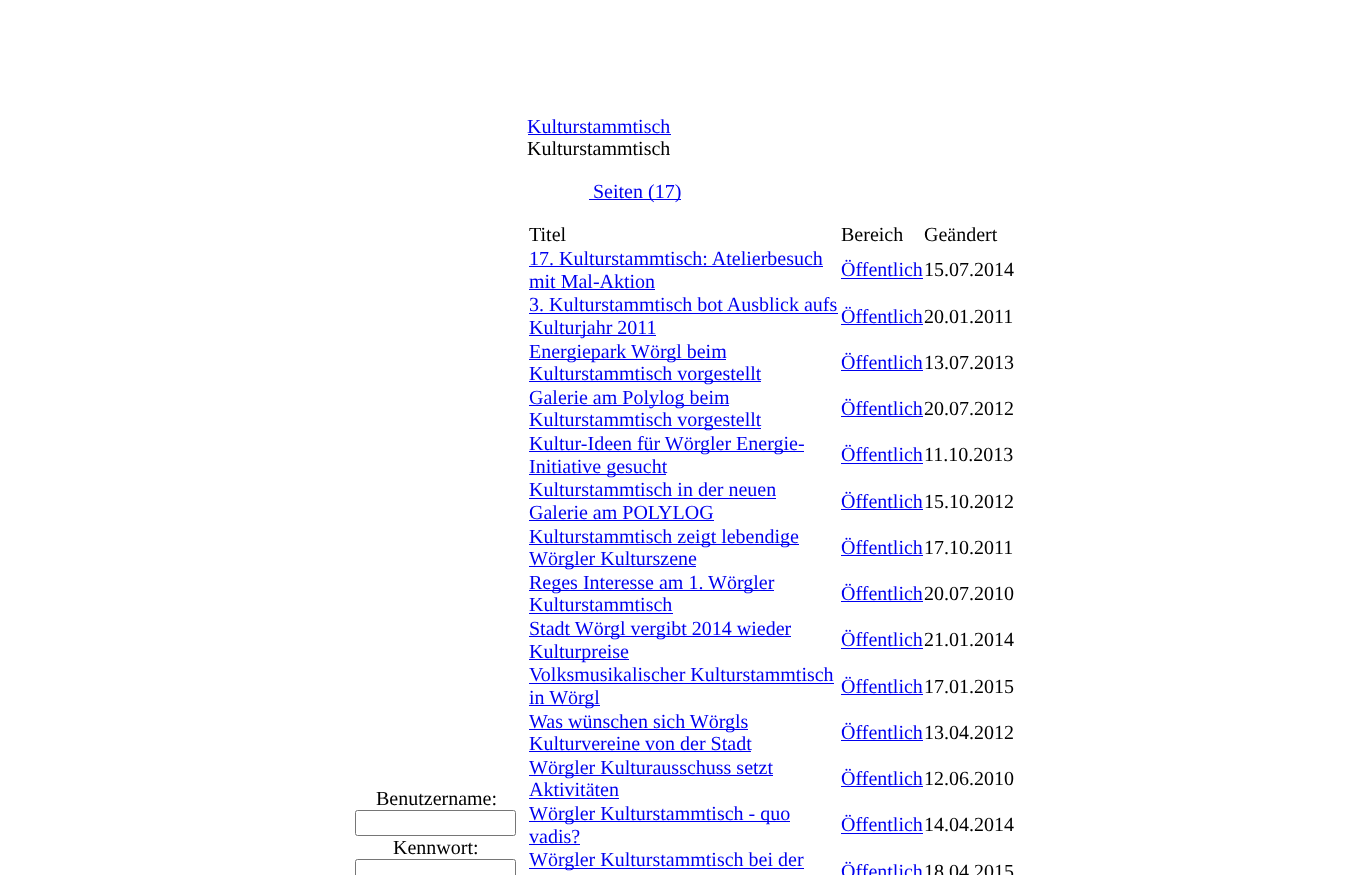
<svg xmlns="http://www.w3.org/2000/svg" width="1360" height="875">
<style>
.a{font:20px Liberation Serif;fill:#000}
.b{font:20px Liberation Serif;fill:#00e}
</style>
<rect width="100%" height="100%" fill="#fff"/>
<rect fill="none" stroke="#767676" x="355.5" y="810.5" width="160" height="25" rx="2"/>
<rect fill="none" stroke="#767676" x="355.5" y="859.5" width="160" height="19" rx="2"/>
<path fill="#00e" d="M528 134h143v1H528z"/>
<path fill="#00e" d="M589 199h92v1H589z"/>
<path fill="#00e" d="M529 266h294v1H529z"/>
<path fill="#00e" d="M529 289h126v1H529z"/>
<path fill="#00e" d="M841 278h82v1H841z"/>
<path fill="#00e" d="M529 313h309v1H529z"/>
<path fill="#00e" d="M529 335h127v1H529z"/>
<path fill="#00e" d="M841 324h82v1H841z"/>
<path fill="#00e" d="M529 359h197v1H529z"/>
<path fill="#00e" d="M529 381h232v1H529z"/>
<path fill="#00e" d="M841 370h82v1H841z"/>
<path fill="#00e" d="M529 405h200v1H529z"/>
<path fill="#00e" d="M529 428h232v1H529z"/>
<path fill="#00e" d="M841 416h82v1H841z"/>
<path fill="#00e" d="M529 451h275v1H529z"/>
<path fill="#00e" d="M529 474h137v1H529z"/>
<path fill="#00e" d="M841 463h82v1H841z"/>
<path fill="#00e" d="M529 498h247v1H529z"/>
<path fill="#00e" d="M529 520h185v1H529z"/>
<path fill="#00e" d="M841 509h82v1H841z"/>
<path fill="#00e" d="M529 544h270v1H529z"/>
<path fill="#00e" d="M529 566h167v1H529z"/>
<path fill="#00e" d="M841 555h82v1H841z"/>
<path fill="#00e" d="M529 590h245v1H529z"/>
<path fill="#00e" d="M529 613h144v1H529z"/>
<path fill="#00e" d="M841 601h82v1H841z"/>
<path fill="#00e" d="M529 636h262v1H529z"/>
<path fill="#00e" d="M529 659h100v1H529z"/>
<path fill="#00e" d="M841 648h82v1H841z"/>
<path fill="#00e" d="M529 683h305v1H529z"/>
<path fill="#00e" d="M529 705h71v1H529z"/>
<path fill="#00e" d="M841 694h82v1H841z"/>
<path fill="#00e" d="M529 729h219v1H529z"/>
<path fill="#00e" d="M529 751h222v1H529z"/>
<path fill="#00e" d="M841 740h82v1H841z"/>
<path fill="#00e" d="M529 775h244v1H529z"/>
<path fill="#00e" d="M529 798h90v1H529z"/>
<path fill="#00e" d="M841 786h82v1H841z"/>
<path fill="#00e" d="M529 821h261v1H529z"/>
<path fill="#00e" d="M529 844h51v1H529z"/>
<path fill="#00e" d="M841 833h82v1H841z"/>
<path fill="#00e" d="M529 868h275v1H529z"/>
<text class="a" x="376" y="805">Benutzername:</text>
<text class="a" x="393" y="854">Kennwort:</text>
<text class="b" x="527" y="133">Kulturstammtisch</text>
<text class="a" x="527" y="155">Kulturstammtisch</text>
<text class="b" x="593" y="198">Seiten (17)</text>
<text class="a" x="529" y="241">Titel</text>
<text class="a" x="841" y="241">Bereich</text>
<text class="a" x="924" y="241">Geändert</text>
<text class="b" x="529" y="265">17. Kulturstammtisch: Atelierbesuch</text>
<text class="b" x="529" y="288">mit Mal-Aktion</text>
<text class="b" x="841" y="276">Öffentlich</text>
<text class="a" x="924" y="276">15.07.2014</text>
<text class="b" x="529" y="311">3. Kulturstammtisch bot Ausblick aufs</text>
<text class="b" x="529" y="334">Kulturjahr 2011</text>
<text class="b" x="841" y="323">Öffentlich</text>
<text class="a" x="924" y="323">20.01.2011</text>
<text class="b" x="529" y="358">Energiepark Wörgl beim</text>
<text class="b" x="529" y="380">Kulturstammtisch vorgestellt</text>
<text class="b" x="841" y="369">Öffentlich</text>
<text class="a" x="924" y="369">13.07.2013</text>
<text class="b" x="529" y="404">Galerie am Polylog beim</text>
<text class="b" x="529" y="426">Kulturstammtisch vorgestellt</text>
<text class="b" x="841" y="415">Öffentlich</text>
<text class="a" x="924" y="415">20.07.2012</text>
<text class="b" x="529" y="450">Kultur-Ideen für Wörgler Energie-</text>
<text class="b" x="529" y="473">Initiative gesucht</text>
<text class="b" x="841" y="461">Öffentlich</text>
<text class="a" x="924" y="461">11.10.2013</text>
<text class="b" x="529" y="496">Kulturstammtisch in der neuen</text>
<text class="b" x="529" y="519">Galerie am POLYLOG</text>
<text class="b" x="841" y="508">Öffentlich</text>
<text class="a" x="924" y="508">15.10.2012</text>
<text class="b" x="529" y="543">Kulturstammtisch zeigt lebendige</text>
<text class="b" x="529" y="565">Wörgler Kulturszene</text>
<text class="b" x="841" y="554">Öffentlich</text>
<text class="a" x="924" y="554">17.10.2011</text>
<text class="b" x="529" y="589">Reges Interesse am 1. Wörgler</text>
<text class="b" x="529" y="611">Kulturstammtisch</text>
<text class="b" x="841" y="600">Öffentlich</text>
<text class="a" x="924" y="600">20.07.2010</text>
<text class="b" x="529" y="635">Stadt Wörgl vergibt 2014 wieder</text>
<text class="b" x="529" y="658">Kulturpreise</text>
<text class="b" x="841" y="646">Öffentlich</text>
<text class="a" x="924" y="646">21.01.2014</text>
<text class="b" x="529" y="681">Volksmusikalischer Kulturstammtisch</text>
<text class="b" x="529" y="704">in Wörgl</text>
<text class="b" x="841" y="693">Öffentlich</text>
<text class="a" x="924" y="693">17.01.2015</text>
<text class="b" x="529" y="728">Was wünschen sich Wörgls</text>
<text class="b" x="529" y="750">Kulturvereine von der Stadt</text>
<text class="b" x="841" y="739">Öffentlich</text>
<text class="a" x="924" y="739">13.04.2012</text>
<text class="b" x="529" y="774">Wörgler Kulturausschuss setzt</text>
<text class="b" x="529" y="796">Aktivitäten</text>
<text class="b" x="841" y="785">Öffentlich</text>
<text class="a" x="924" y="785">12.06.2010</text>
<text class="b" x="529" y="820">Wörgler Kulturstammtisch - quo</text>
<text class="b" x="529" y="843">vadis?</text>
<text class="b" x="841" y="831">Öffentlich</text>
<text class="a" x="924" y="831">14.04.2014</text>
<text class="b" x="529" y="866">Wörgler Kulturstammtisch bei der</text>
<text class="b" x="841" y="878">Öffentlich</text>
<text class="a" x="924" y="878">18.04.2015</text>
</svg>
